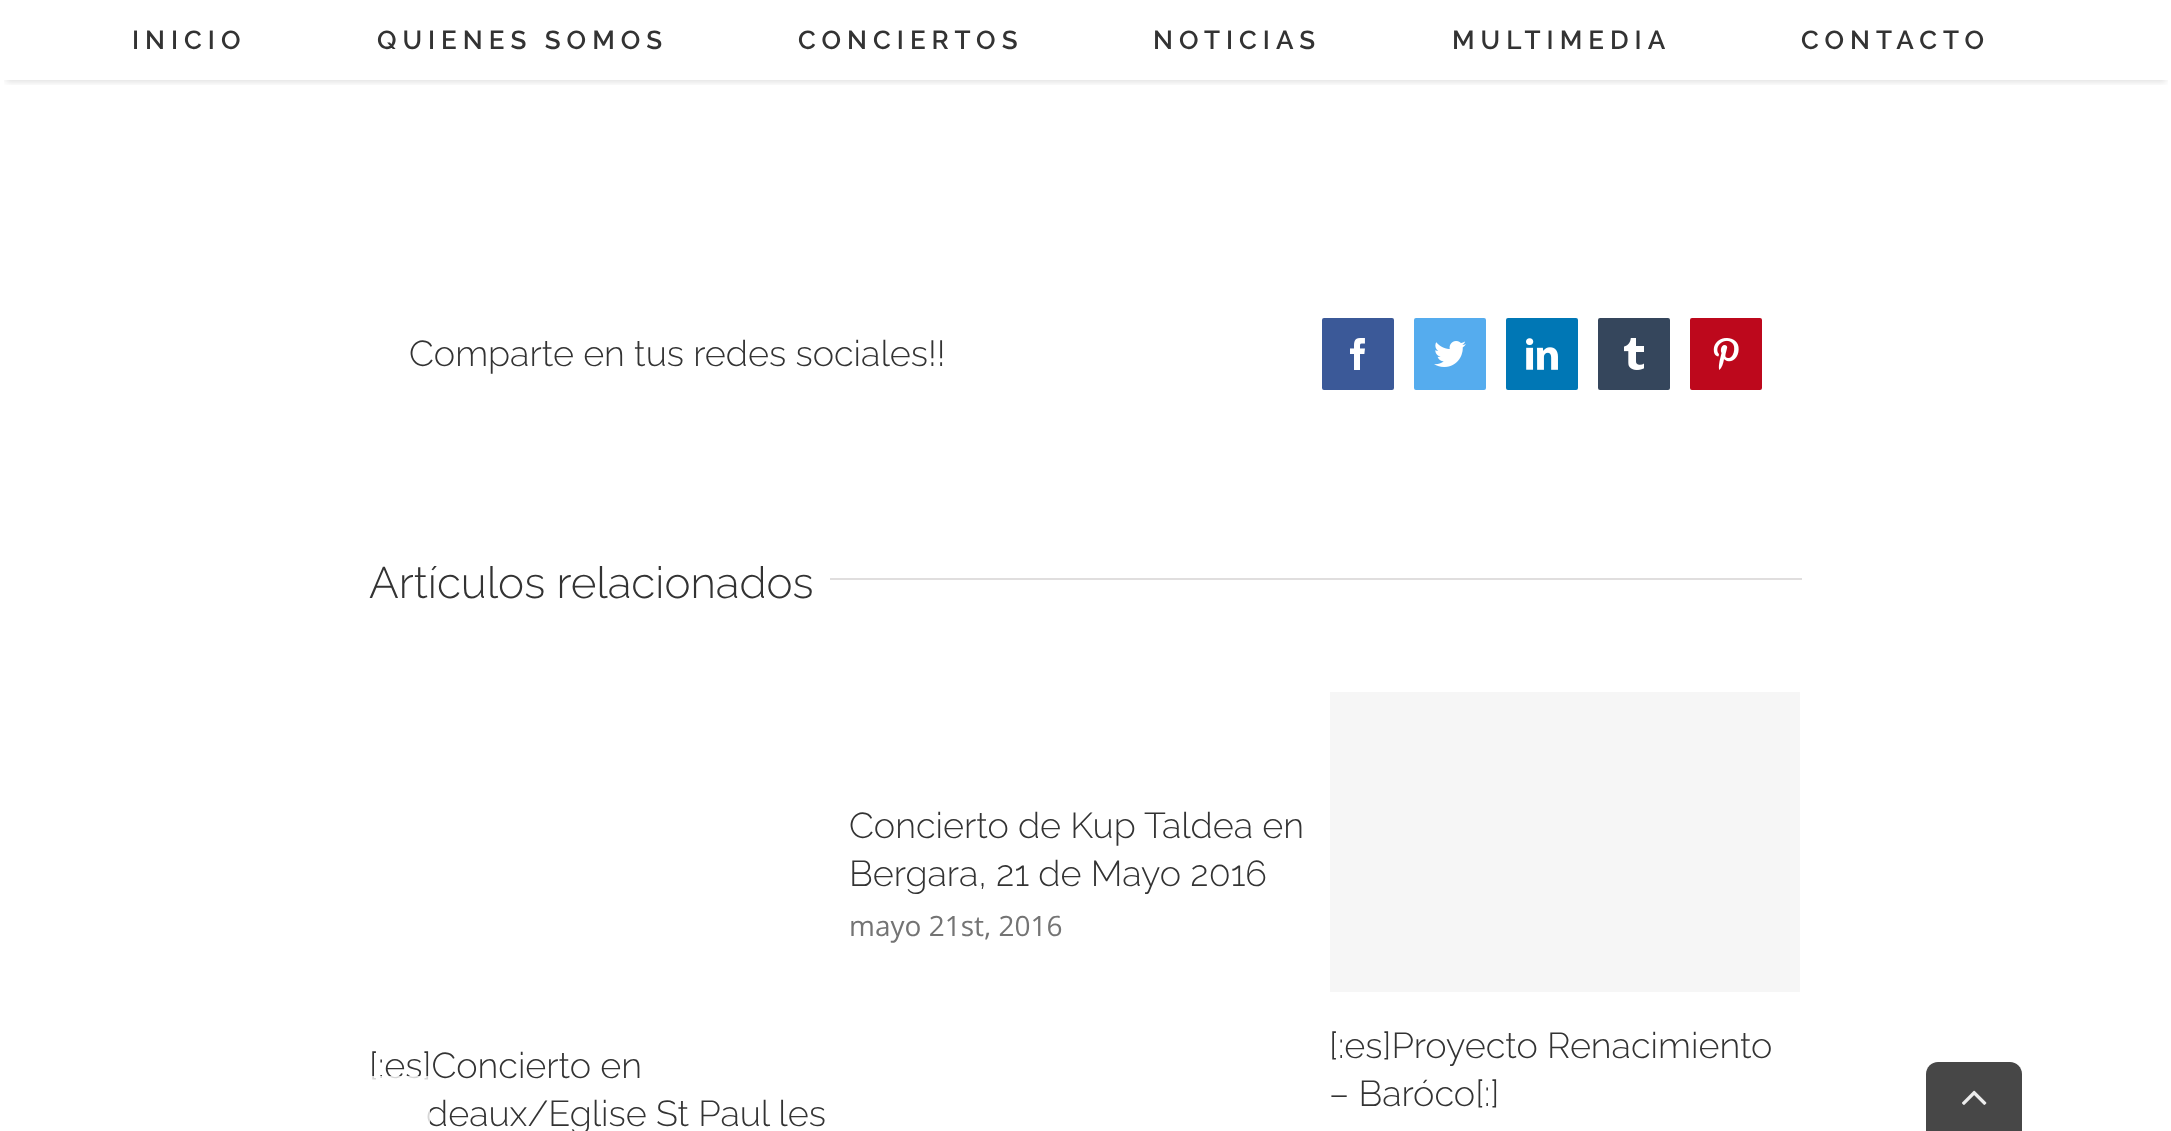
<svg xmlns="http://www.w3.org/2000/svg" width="2171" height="1131">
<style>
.a{font:600 26px Raleway;letter-spacing:6px;fill:#333}
.b{font:300 36px Raleway;fill:#333}
.c{font:300 44px Raleway;fill:#333}
.d{font:28px Open Sans;fill:#747474}
</style>
<defs>
<clipPath id="clip1"><path d="M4 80h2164v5H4z"/></clipPath>
</defs>
<rect width="100%" height="100%" fill="#fff"/>
<g clip-path="url(#clip1)">
<path fill="#0000001f" filter="blur(3px)" d="M6 14h2160v68H6z"/>
</g>
<rect fill="#3b5998" stroke="#3b5998" stroke-width="2" x="1323" y="319" width="70" height="70" rx="1"/>
<image href="1.png" x="1350" y="338" width="15" height="32"/>
<rect fill="#55acee" stroke="#55acee" stroke-width="2" x="1415" y="319" width="70" height="70" rx="1"/>
<image href="2.png" x="1434" y="341" width="32" height="26"/>
<rect fill="#0077b5" stroke="#0077b5" stroke-width="2" x="1507" y="319" width="70" height="70" rx="1"/>
<image href="3.png" x="1526" y="338" width="32" height="32"/>
<rect fill="#35465c" stroke="#35465c" stroke-width="2" x="1599" y="319" width="70" height="70" rx="1"/>
<image href="4.png" x="1624" y="338" width="20" height="32"/>
<rect fill="#bd081c" stroke="#bd081c" stroke-width="2" x="1691" y="319" width="70" height="70" rx="1"/>
<image href="5.png" x="1713" y="338" width="26" height="32"/>
<path fill="#e0dede" d="M830 578h972v2H830z"/>
<path fill="#f6f6f6" d="M1330 692h470v300H1330z"/>
<path fill="#474747" d="M1938 1062h72c6.5 0 12 5.5 12 12v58h-96v-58c0-6.5 5.5-12 12-12z"/>
<image href="7.png" x="1962" y="1090" width="25" height="15"/>
<text class="a" x="132" y="49">INICIO</text>
<text class="a" x="377" y="49">QUIENES SOMOS</text>
<text class="a" x="798" y="49">CONCIERTOS</text>
<text class="a" x="1153" y="49">NOTICIAS</text>
<text class="a" x="1452" y="49">MULTIMEDIA</text>
<text class="a" x="1801" y="49">CONTACTO</text>
<text class="b" x="409" y="366">Comparte en tus redes sociales!!</text>
<text class="c" x="369" y="598">Artículos relacionados</text>
<text class="b" x="849" y="838">Concierto de Kup Taldea en</text>
<text class="b" x="849" y="886">Bergara, 21 de Mayo 2016</text>
<text class="d" x="849" y="936">mayo 21st, 2016</text>
<text class="b" x="369" y="1078">[:es]Concierto en</text>
<text class="b" x="426" y="1126">deaux/Eglise St Paul les</text>
<text class="b" x="1329" y="1058">[:es]Proyecto Renacimiento</text>
<text class="b" x="1329" y="1106">– Baróco[:]</text>
<path fill="#ffffffcc" d="M372 1076h58v48H372z"/>
<image href="6.png" x="397" y="1108" width="4" height="3"/>
</svg>
